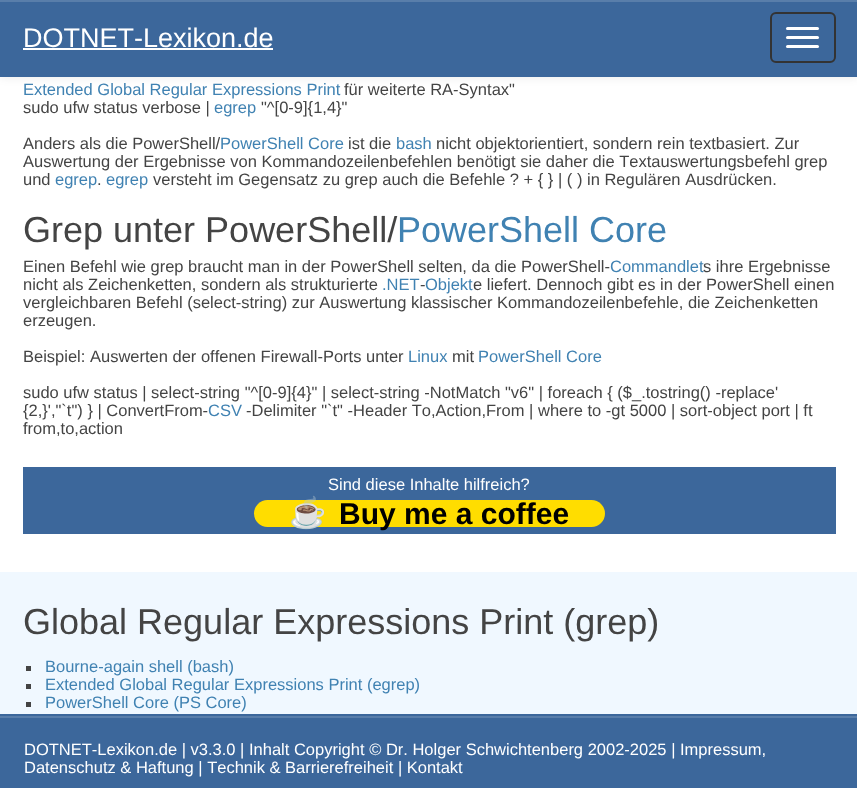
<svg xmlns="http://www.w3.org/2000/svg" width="857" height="788">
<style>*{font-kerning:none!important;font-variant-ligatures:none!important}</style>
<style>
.a{font:27px Liberation Sans;fill:#fff}
.b{font:16.5px Liberation Sans;fill:#4082b2}
.c{font:16.5px Liberation Sans;fill:#444}
.d{font:36px Liberation Sans;fill:#444}
.e{font:36px Liberation Sans;fill:#4082b2}
.f{font:16.5px Liberation Sans;fill:#fff}
.g{font:bold 30px Noto Color Emoji;fill:#000}
.h{font:bold 30px Liberation Sans;fill:#000}
</style>
<rect width="100%" height="100%" fill="#fff"/>
<path fill="#00000012" filter="blur(4px)" d="M0 2h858v76H0z"/>
<path fill="#3c679b" d="M0 2h857v75H0z"/>
<path fill="#597eaa" d="M0 0h857v2H0z"/>
<path fill="#fff" d="M23 48h250v2H23z"/>
<rect fill="none" stroke="#333" stroke-width="2" x="771" y="13" width="64" height="49" rx="5"/>
<rect fill="#fff" x="786" y="27" width="33" height="3" rx="1.5"/>
<rect fill="#fff" x="786" y="36" width="33" height="3" rx="1.5"/>
<rect fill="#fff" x="786" y="45" width="33" height="3" rx="1.5"/>
<path fill="#3c679b" d="M23 467h813v67H23z"/>
<rect fill="#fd0" x="254" y="500" width="351" height="27" rx="13.5"/>
<path fill="#f0f8ff" d="M0 572h857v142H0z"/>
<path fill="#444" d="M26 666h5v5H26z"/>
<path fill="#444" d="M26 684h5v5H26z"/>
<path fill="#444" d="M26 702h5v5H26z"/>
<path fill="#3c679b" d="M0 718h857v70H0z"/>
<path fill="#597eaa" d="M0 716h857v2H0z"/>
<path fill="#3c679b" d="M0 714h857v2H0z"/>
<text class="a" x="23" y="47">DOTNET-Lexikon.de</text>
<text class="b" x="23" y="95">Extended Global Regular Expressions Print</text>
<text class="c" x="344" y="95">für weiterte RA-Syntax"</text>
<text class="c" x="23" y="113">sudo ufw status verbose |</text>
<text class="b" x="214" y="113">egrep</text>
<text class="c" x="261" y="113">"^[0-9]{1,4}"</text>
<text class="c" x="23" y="149">Anders als die PowerShell/</text>
<text class="b" x="220" y="149">PowerShell Core</text>
<text class="c" x="348" y="149">ist die</text>
<text class="b" x="396" y="149">bash</text>
<text class="c" x="436" y="149">nicht objektorientiert, sondern rein textbasiert. Zur</text>
<text class="c" x="23" y="167">Auswertung der Ergebnisse von Kommandozeilenbefehlen benötigt sie daher die Textauswertungsbefehl grep</text>
<text class="c" x="23" y="185">und</text>
<text class="b" x="55" y="185">egrep</text>
<text class="c" x="97" y="185">.</text>
<text class="b" x="106" y="185">egrep</text>
<text class="c" x="153" y="185">versteht im Gegensatz zu grep auch die Befehle ? + { } | ( ) in Regulären Ausdrücken.</text>
<text class="d" x="23" y="242">Grep unter PowerShell/</text>
<text class="e" x="397" y="242">PowerShell Core</text>
<text class="c" x="23" y="272">Einen Befehl wie grep braucht man in der PowerShell selten, da die PowerShell-</text>
<text class="b" x="610" y="272">Commandlet</text>
<text class="c" x="703" y="272">s ihre Ergebnisse</text>
<text class="c" x="23" y="290">nicht als Zeichenketten, sondern als strukturierte</text>
<text class="b" x="382" y="290">.NET</text>
<text class="c" x="420" y="290">-</text>
<text class="b" x="425" y="290">Objekt</text>
<text class="c" x="473" y="290">e liefert. Dennoch gibt es in der PowerShell einen</text>
<text class="c" x="23" y="308">vergleichbaren Befehl (select-string) zur Auswertung klassischer Kommandozeilenbefehle, die Zeichenketten</text>
<text class="c" x="23" y="326">erzeugen.</text>
<text class="c" x="23" y="362">Beispiel: Auswerten der offenen Firewall-Ports unter</text>
<text class="b" x="408" y="362">Linux</text>
<text class="c" x="452" y="362">mit</text>
<text class="b" x="478" y="362">PowerShell Core</text>
<text class="c" x="23" y="398">sudo ufw status | select-string "^[0-9]{4}" | select-string -NotMatch "v6" | foreach { ($_.tostring() -replace'</text>
<text class="c" x="23" y="416">{2,}',"`t") } | ConvertFrom-</text>
<text class="b" x="208" y="416">CSV</text>
<text class="c" x="246" y="416">-Delimiter "`t" -Header To,Action,From | where to -gt 5000 | sort-object port | ft</text>
<text class="c" x="23" y="434">from,to,action</text>
<text class="f" x="328" y="490">Sind diese Inhalte hilfreich?</text>
<text class="g" x="289" y="523">☕</text>
<text class="h" x="339" y="524">Buy me a coffee</text>
<text class="d" x="23" y="634">Global Regular Expressions Print (grep)</text>
<text class="b" x="45" y="672">Bourne-again shell (bash)</text>
<text class="b" x="45" y="690">Extended Global Regular Expressions Print (egrep)</text>
<text class="b" x="45" y="708">PowerShell Core (PS Core)</text>
<text class="f" x="24" y="755">DOTNET-Lexikon.de | v3.3.0 | Inhalt Copyright © Dr. Holger Schwichtenberg 2002-2025 | Impressum,</text>
<text class="f" x="24" y="773">Datenschutz &amp; Haftung | Technik &amp; Barrierefreiheit | Kontakt</text>
</svg>
